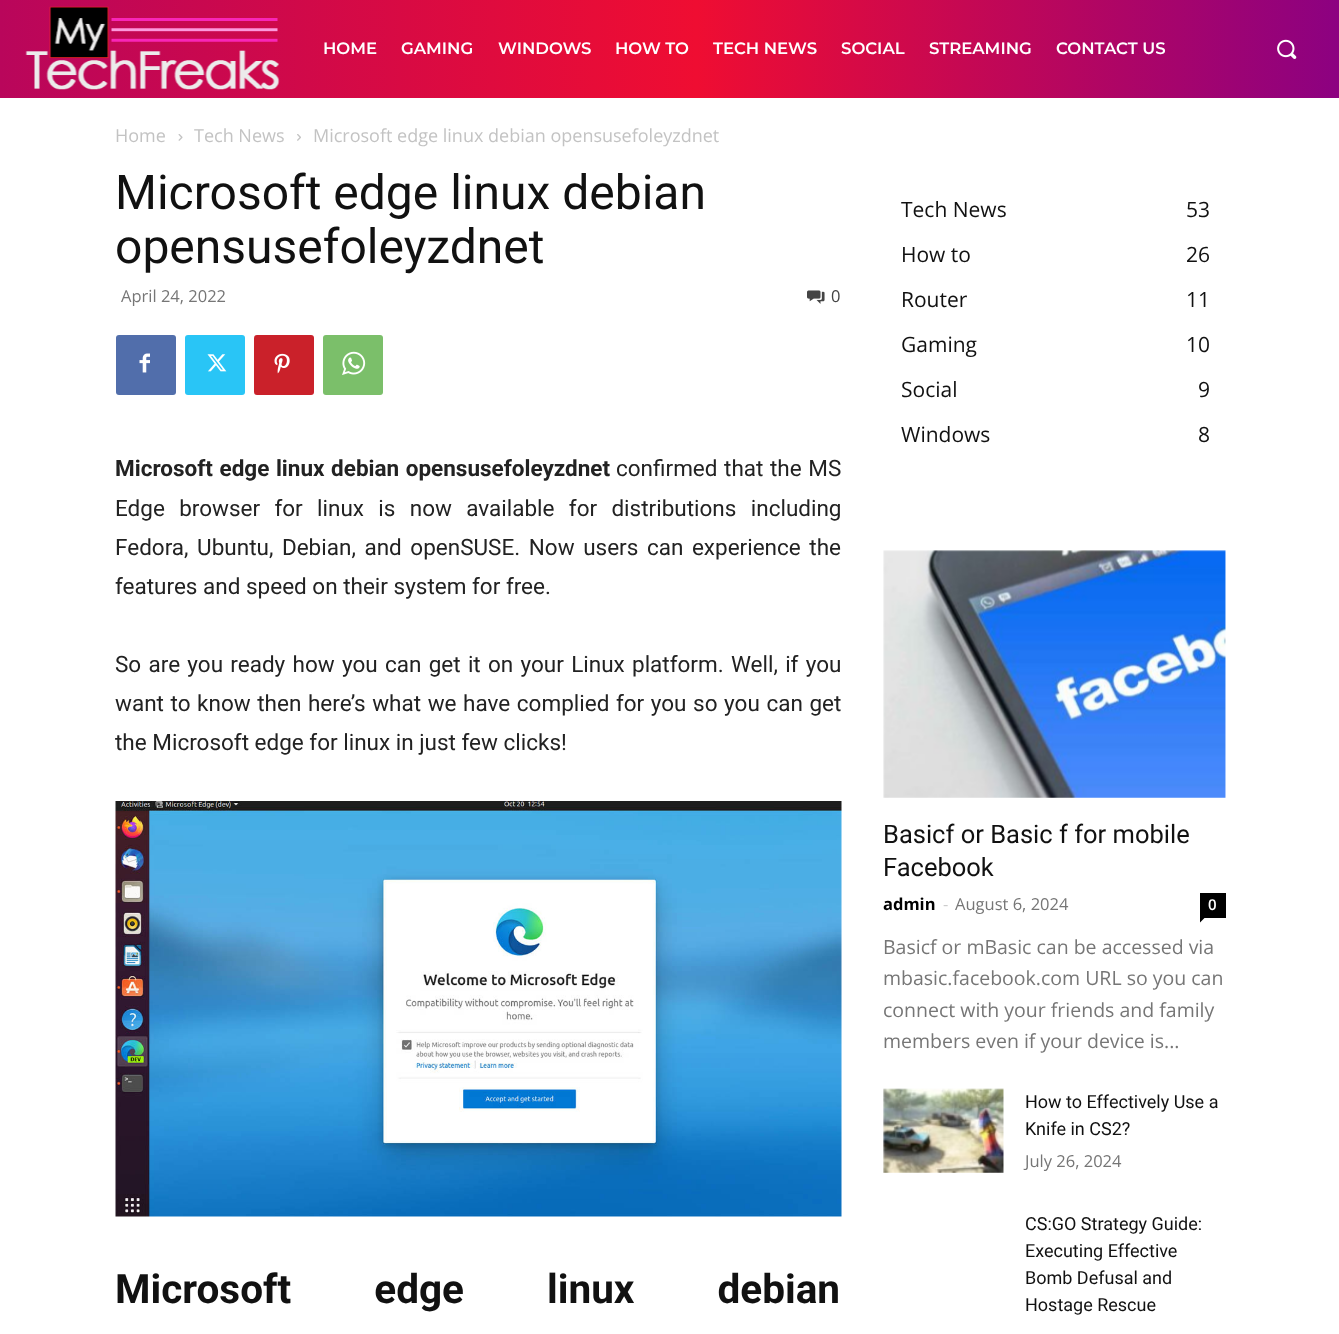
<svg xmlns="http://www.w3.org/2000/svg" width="1339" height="1334">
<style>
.a{font:600 16.5px Montserrat;fill:#fff}
.b{font:18px Open Sans;fill:#c3c3c3}
.c{font:48px Roboto;fill:#111}
.d{font:16.5px Open Sans;fill:#767676}
.e{font:16.5px Open Sans;fill:#444}
.f{font:bold 22.5px Roboto;fill:#222}
.g{font:22.5px Roboto;fill:#222}
.h{font:bold 40.5px Roboto;fill:#111}
.i{font:21px Open Sans;fill:#111}
.j{font:25.5px Roboto;fill:#111}
.k{font:bold 16.5px Open Sans;fill:#000}
.l{font:16.5px Open Sans;fill:#ccc}
.m{font:600 15px Open Sans;fill:#fff}
.n{font:19.5px Open Sans;fill:#767676}
.o{font:18px Roboto;fill:#111}
</style>
<defs>
<linearGradient id="g1" gradientUnits="userSpaceOnUse" x1="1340" y1="49" x2="0" y2="49"><stop offset="0" stop-color="#8c0181"/><stop offset="0.48" stop-color="#ef0d32"/><stop offset="1" stop-color="#b9065b"/></linearGradient>
</defs>
<rect width="100%" height="100%" fill="#fff"/>
<path fill="url(#g1)" d="M0 0h1339v98H0z"/>
<image href="1.png" x="25" y="6" width="255" height="84"/>
<image href="2.png" x="1277" y="39" width="20" height="20"/>
<image href="3.png" x="178" y="134" width="5" height="7"/>
<image href="4.png" x="297" y="134" width="4" height="7"/>
<image href="5.png" x="807" y="290" width="18" height="14"/>
<rect fill="#516eab" x="116" y="335" width="60" height="60" rx="3"/>
<image href="6.png" x="139" y="353" width="11" height="20"/>
<rect fill="#29c5f6" x="185" y="335" width="60" height="60" rx="3"/>
<image href="7.png" x="207" y="354" width="20" height="18"/>
<rect fill="#ca212a" x="254" y="335" width="60" height="60" rx="3"/>
<image href="8.png" x="274" y="353" width="16" height="21"/>
<rect fill="#7bbf6a" x="323" y="335" width="60" height="60" rx="3"/>
<image href="9.png" x="342" y="351" width="24" height="24"/>
<image href="10.png" x="115" y="801" width="727" height="416"/>
<image href="11.png" x="883" y="550" width="343" height="248"/>
<path fill="#000" d="M1200 893h26v25H1200z"/>
<path fill="#000" d="M1200 918h4.5l-4.5 4.5z"/>
<image href="12.png" x="883" y="1088" width="121" height="85"/>
<text class="a" x="323" y="54">HOME</text>
<text class="a" x="401" y="54">GAMING</text>
<text class="a" x="498" y="54">WINDOWS</text>
<text class="a" x="615" y="54">HOW TO</text>
<text class="a" x="713" y="54">TECH NEWS</text>
<text class="a" x="841" y="54">SOCIAL</text>
<text class="a" x="929" y="54">STREAMING</text>
<text class="a" x="1056" y="54">CONTACT US</text>
<text class="b" x="115" y="142">Home</text>
<text class="b" x="194" y="142">Tech News</text>
<text class="b" x="313" y="142">Microsoft edge linux debian opensusefoleyzdnet</text>
<text class="c" x="115" y="209">Microsoft edge linux debian</text>
<text class="c" x="115" y="263">opensusefoleyzdnet</text>
<text class="d" x="121" y="302">April 24, 2022</text>
<text class="e" x="831" y="302">0</text>
<text class="f" x="115" y="476" word-spacing="1">Microsoft edge linux debian opensusefoleyzdnet</text>
<text class="g" x="616" y="476" word-spacing="1">confirmed that the MS</text>
<text class="g" x="115" y="516" word-spacing="8.75">Edge browser for linux is now available for distributions including</text>
<text class="g" x="115" y="555" word-spacing="3">Fedora, Ubuntu, Debian, and openSUSE. Now users can experience the</text>
<text class="g" x="115" y="594">features and speed on their system for free.</text>
<text class="g" x="115" y="672" word-spacing="1.7">So are you ready how you can get it on your Linux platform. Well, if you</text>
<text class="g" x="115" y="711" word-spacing="1">want to know then here’s what we have complied for you so you can get</text>
<text class="g" x="115" y="750">the Microsoft edge for linux in just few clicks!</text>
<text class="h" x="115" y="1303" word-spacing="73">Microsoft edge linux debian</text>
<text class="i" x="901" y="217">Tech News</text>
<text class="i" x="1186" y="217">53</text>
<text class="i" x="901" y="262">How to</text>
<text class="i" x="1186" y="262">26</text>
<text class="i" x="901" y="307">Router</text>
<text class="i" x="1186" y="307">11</text>
<text class="i" x="901" y="352">Gaming</text>
<text class="i" x="1186" y="352">10</text>
<text class="i" x="901" y="397">Social</text>
<text class="i" x="1198" y="397">9</text>
<text class="i" x="901" y="442">Windows</text>
<text class="i" x="1198" y="442">8</text>
<text class="j" x="883" y="843">Basicf or Basic f for mobile</text>
<text class="j" x="883" y="876">Facebook</text>
<text class="k" x="883" y="910">admin</text>
<text class="l" x="943" y="910">-</text>
<text class="d" x="955" y="910">August 6, 2024</text>
<text class="m" x="1208" y="910">0</text>
<text class="n" x="883" y="954">Basicf or mBasic can be accessed via</text>
<text class="n" x="883" y="985">mbasic.facebook.com URL so you can</text>
<text class="n" x="883" y="1017">connect with your friends and family</text>
<text class="n" x="883" y="1048">members even if your device is...</text>
<text class="o" x="1025" y="1108">How to Effectively Use a</text>
<text class="o" x="1025" y="1135">Knife in CS2?</text>
<text class="d" x="1025" y="1167">July 26, 2024</text>
<text class="o" x="1025" y="1230">CS:GO Strategy Guide:</text>
<text class="o" x="1025" y="1257">Executing Effective</text>
<text class="o" x="1025" y="1284">Bomb Defusal and</text>
<text class="o" x="1025" y="1311">Hostage Rescue</text>
</svg>
